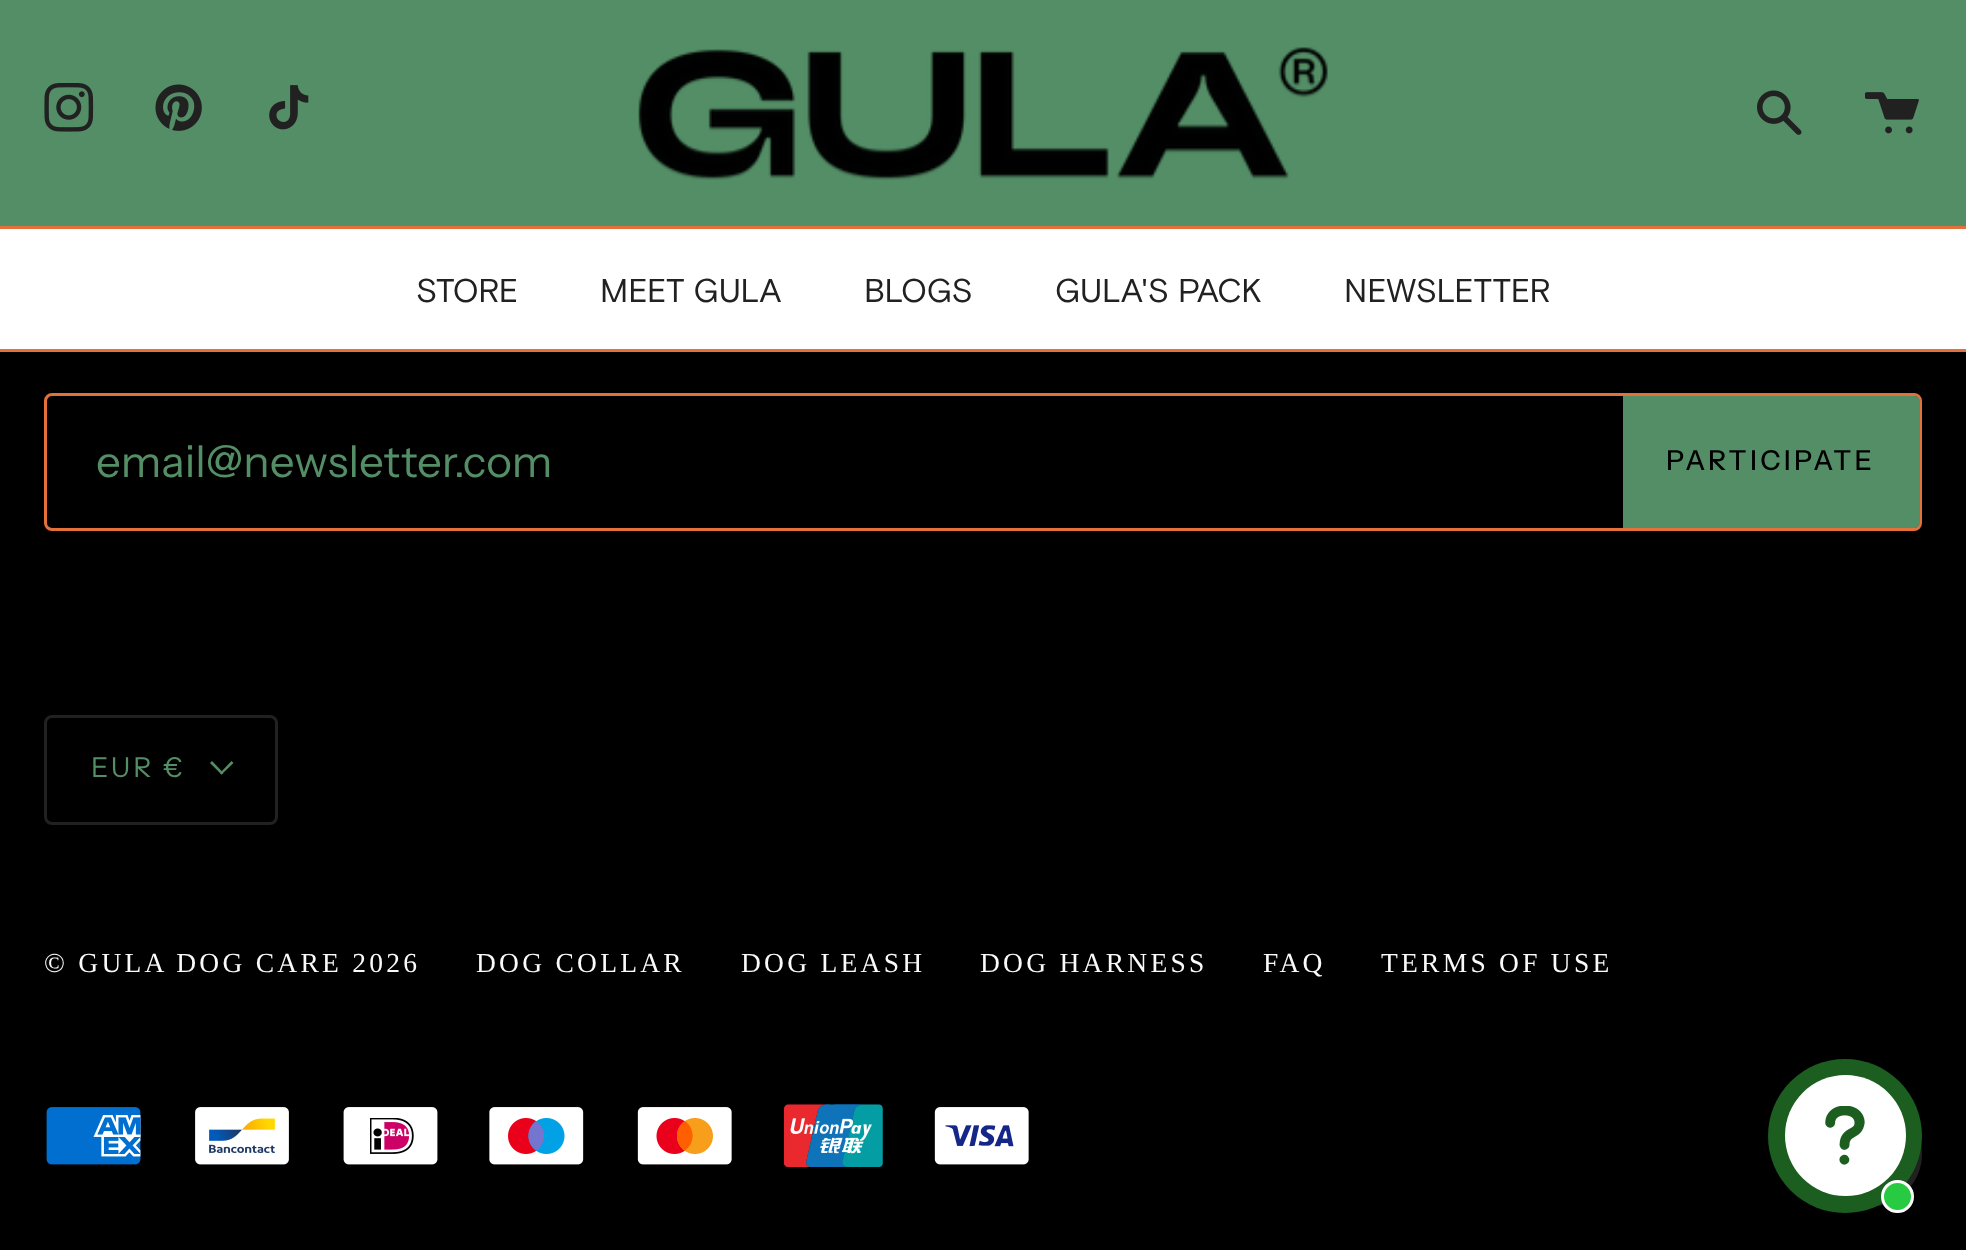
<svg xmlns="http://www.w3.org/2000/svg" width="1966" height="1250">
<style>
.a{font:33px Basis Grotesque;fill:#212121}
.b{font:44px Instrument Sans;fill:#548e66}
.c{font:500 27.5px Instrument Sans;letter-spacing:3.25px;fill:#000}
.d{font:27.5px Instrument Sans;letter-spacing:3.25px;fill:#548e66}
.e{font:27.5px Liberation Serif;letter-spacing:3.25px;fill:#fafafa}
</style>
<rect width="100%" height="100%" fill="#000"/>
<path fill="#e47139" d="M0 349h1966v3H0z"/>
<path fill="#fff" d="M0 229h1966v120H0z"/>
<path fill="#548e66" d="M0 0h1966v226H0z"/>
<image href="1.png" x="44" y="83" width="50" height="49"/>
<image href="2.png" x="155" y="84" width="47" height="47"/>
<image href="3.png" x="269" y="85" width="40" height="45"/>
<image href="4.png" x="638" y="47" width="690" height="133"/>
<image href="5.png" x="1757" y="90" width="45" height="45"/>
<image href="6.png" x="1865" y="92" width="54" height="42"/>
<path fill="#e47139" d="M0 226h1966v3H0z"/>
<rect fill="none" stroke="#e47139" stroke-width="3" x="45.5" y="394.5" width="1875" height="135" rx="6.5"/>
<path fill="#548e66" d="M1623 396h291c3.5 0 6 2.5 6 6v120c0 3.5-2.5 6-6 6h-291z"/>
<rect fill="#548e66" x="1623" y="396" width="297" height="132" rx="8"/>
<rect fill="none" stroke="#212121" stroke-width="3" x="45.5" y="716.5" width="231" height="107" rx="6.5"/>
<path fill="#548e66" d="M220 773l11.5-12l2 2l-12 11.5z"/>
<path fill="#548e66" d="M210 763l2-2l11.5 12l-2 1.5z"/>
<image href="7.png" x="46" y="1107" width="95" height="58"/>
<image href="8.png" x="195" y="1107" width="94" height="58"/>
<image href="9.png" x="343" y="1107" width="95" height="58"/>
<image href="10.png" x="489" y="1107" width="95" height="58"/>
<image href="11.png" x="637" y="1107" width="95" height="58"/>
<image href="12.png" x="784" y="1104" width="99" height="63"/>
<image href="13.png" x="934" y="1107" width="95" height="58"/>
<rect fill="#212121" stroke="#212121" stroke-width="3" x="1813.5" y="1101.5" width="107" height="104" rx="52"/>
<circle fill="#1b5e20" cx="1845" cy="1136" r="77"/>
<circle fill="#fff" cx="1845.5" cy="1135.5" r="60.5"/>
<image href="14.png" x="1825" y="1106" width="40" height="59"/>
<circle fill="#27ca40" stroke="#fff" stroke-width="3" cx="1897.5" cy="1196.5" r="15"/>
<text class="a" x="416" y="302">STORE</text>
<text class="a" x="600" y="302">MEET GULA</text>
<text class="a" x="864" y="302">BLOGS</text>
<text class="a" x="1055" y="302">GULA'S PACK</text>
<text class="a" x="1344" y="302">NEWSLETTER</text>
<text class="b" x="96" y="477">email@newsletter.com</text>
<text class="c" x="1666" y="470">PARTICIPATE</text>
<text class="d" x="91" y="777">EUR €</text>
<text class="e" x="44" y="972">© GULA DOG CARE 2026</text>
<text class="e" x="476" y="972">DOG COLLAR</text>
<text class="e" x="741" y="972">DOG LEASH</text>
<text class="e" x="980" y="972">DOG HARNESS</text>
<text class="e" x="1263" y="972">FAQ</text>
<text class="e" x="1381" y="972">TERMS OF USE</text>
</svg>
